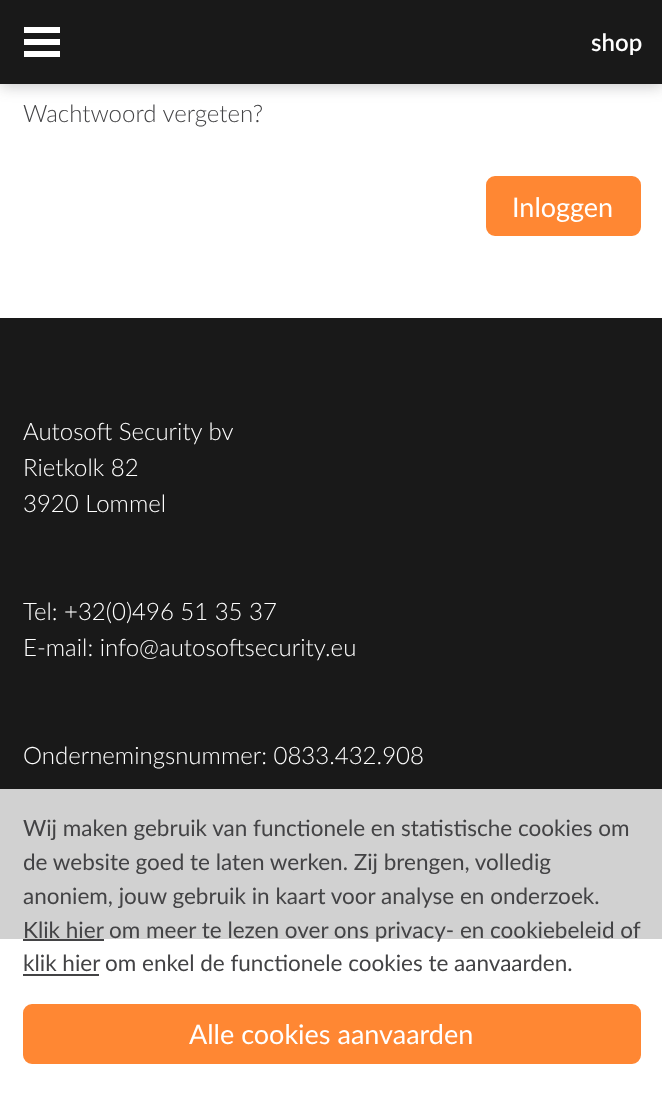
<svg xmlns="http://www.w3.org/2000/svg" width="662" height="1109">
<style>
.a{font:600 24px Lato;fill:#fff}
.b{font:300 24px Lato;fill:#434345}
.c{font:27px Lato;fill:#fff}
.d{font:300 24px Lato;fill:#fff}
.e{font:22.5px Lato;fill:#434345}
</style>
<rect width="100%" height="100%" fill="#fff"/>
<path fill="#4343454d" filter="blur(7.5px)" d="M0 2h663v84H0z"/>
<path fill="#191919" d="M0 0h662v84H0z"/>
<path fill="#fff" d="M24 39h36v6H24z"/>
<path fill="#fff" d="M24 27h36v6H24z"/>
<path fill="#fff" d="M24 51h36v6H24z"/>
<rect fill="#ff8733" stroke="#ff8733" stroke-width="3" x="487.5" y="177.5" width="152" height="57" rx="7.5"/>
<path fill="#191919" d="M0 318h662v621H0z"/>
<path fill="#ffffffcc" d="M0 789h662v150H0z"/>
<path fill="#434345" d="M23 939h81v2H23z"/>
<path fill="#434345" d="M23 974h76v2H23z"/>
<rect fill="#ff8733" stroke="#ff8733" stroke-width="3" x="24.5" y="1005.5" width="615" height="57" rx="7.5"/>
<text class="a" x="591" y="51">shop</text>
<text class="b" x="23" y="122">Wachtwoord vergeten?</text>
<text class="c" x="512" y="217">Inloggen</text>
<text class="d" x="23" y="440">Autosoft Security bv</text>
<text class="d" x="23" y="476">Rietkolk 82</text>
<text class="d" x="23" y="512">3920 Lommel</text>
<text class="d" x="23" y="620">Tel: +32(0)496 51 35 37</text>
<text class="d" x="23" y="656">E-mail: info@autosoftsecurity.eu</text>
<text class="d" x="23" y="764">Ondernemingsnummer: 0833.432.908</text>
<text class="e" x="23" y="836">Wij maken gebruik van functionele en statistische cookies om</text>
<text class="e" x="23" y="870">de website goed te laten werken. Zij brengen, volledig</text>
<text class="e" x="23" y="904">anoniem, jouw gebruik in kaart voor analyse en onderzoek.</text>
<text class="e" x="23" y="938">Klik hier</text>
<text class="e" x="109" y="938">om meer te lezen over ons privacy- en cookiebeleid of</text>
<text class="e" x="23" y="971">klik hier</text>
<text class="e" x="105" y="971">om enkel de functionele cookies te aanvaarden.</text>
<text class="c" x="189" y="1044">Alle cookies aanvaarden</text>
</svg>
